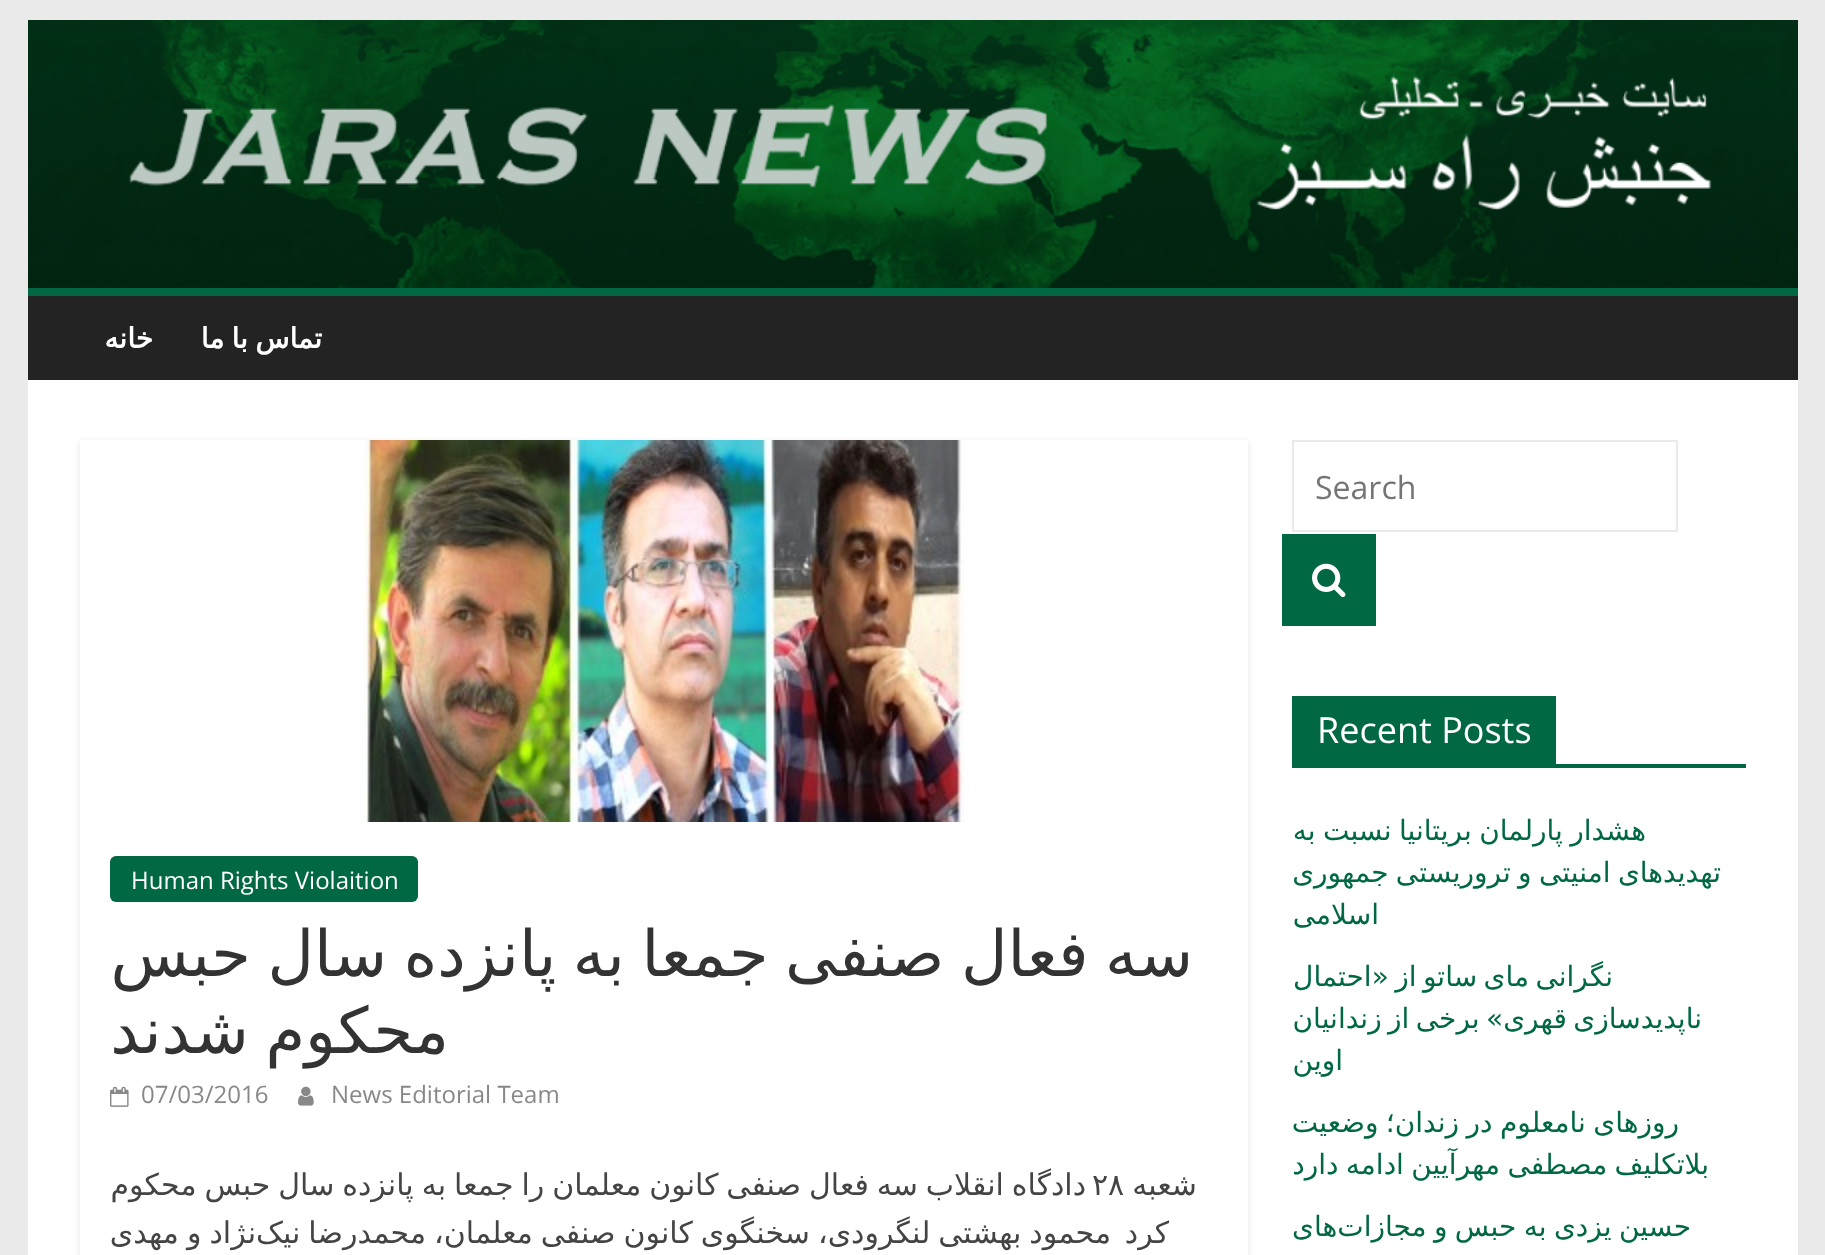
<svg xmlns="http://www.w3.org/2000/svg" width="1825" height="1255">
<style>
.a{font:bold 28px DejaVu Sans;direction:rtl;fill:#fff}
.b{font:32px Open Sans;fill:#757575}
.c{font:36px Open Sans;fill:#fff}
.d{font:28px DejaVu Sans;direction:rtl;fill:#006842}
.e{font:24px Open Sans;fill:#fff}
.f{font:64px DejaVu Sans;direction:rtl;fill:#333}
.g{font:24px Open Sans;fill:#888}
.h{font:30px DejaVu Sans;direction:rtl;fill:#444}
.i{font:30px DejaVu Sans;fill:#444}
</style>
<defs>
<clipPath id="clip1"><path d="M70 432h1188v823h-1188zm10 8h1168v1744h-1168z" clip-rule="evenodd"/></clipPath>
</defs>
<rect width="100%" height="100%" fill="#eaeaea"/>
<image href="1.png" x="28" y="20" width="1770" height="268"/>
<path fill="#232323" d="M28 296h1770v84H28z"/>
<path fill="#006842" d="M28 288h1770v8H28z"/>
<path fill="#fff" d="M28 380h1770v875H28z"/>
<path fill="none" stroke="#eaeaea" stroke-width="2" d="M1293 441h384v90H1293z"/>
<path fill="#006842" d="M1282 534h94v92H1282z"/>
<image href="2.png" x="1312" y="563" width="34" height="35"/>
<path fill="#006842" d="M1292 764h454v4H1292z"/>
<path fill="#006842" d="M1292 696h264v68H1292z"/>
<g clip-path="url(#clip1)">
<path fill="#0000001a" filter="blur(3px)" d="M80 442h1168v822H80z"/>
</g>
<image href="3.png" x="364" y="440" width="600" height="382"/>
<rect fill="#006842" x="110" y="856" width="308" height="46" rx="6"/>
<image href="4.png" x="298" y="1086" width="16" height="20"/>
<image href="5.png" x="110" y="1086" width="19" height="21"/>
<text class="a" x="322" y="348" word-spacing="-1.5">تماس با ما</text>
<text class="a" x="153" y="348">خانه</text>
<text class="b" x="1315" y="499">Search</text>
<text class="c" x="1317" y="743">Recent Posts</text>
<text class="d" x="1646" y="840" word-spacing="-1.5">هشدار پارلمان بریتانیا نسبت به</text>
<text class="d" x="1721" y="882" word-spacing="-1.5">تهدیدهای امنیتی و تروریستی جمهوری</text>
<text class="d" x="1379" y="924">اسلامی</text>
<text class="d" x="1613" y="986" word-spacing="-2.5">نگرانی مای ساتو از «احتمال</text>
<text class="d" x="1702" y="1028" word-spacing="-2.5">ناپدیدسازی قهری» برخی از زندانیان</text>
<text class="d" x="1343" y="1070">اوین</text>
<text class="d" x="1679" y="1132" word-spacing="-1.5">روزهای نامعلوم در زندان؛ وضعیت</text>
<text class="d" x="1709" y="1174" word-spacing="-1.5">بلاتکلیف مصطفی مهرآیین ادامه دارد</text>
<text class="d" x="1691" y="1236" word-spacing="-1.5">حسین یزدی به حبس و مجازات‌های</text>
<text class="e" x="131" y="889">Human Rights Violaition</text>
<text class="f" x="1193" y="976" word-spacing="-3.75">سه فعال صنفی جمعا به پانزده سال حبس</text>
<text class="f" x="449" y="1053" word-spacing="-3.75">محکوم شدند</text>
<text class="g" x="331" y="1103">News Editorial Team</text>
<text class="g" x="141" y="1103">07/03/2016</text>
<text class="h" x="1197" y="1195">شعبه</text>
<text class="h" x="1086" y="1195" word-spacing="-1.6">دادگاه انقلاب سه فعال صنفی کانون معلمان را جمعا به پانزده سال حبس محکوم</text>
<text class="i" x="1092" y="1195">۲۸</text>
<text class="h" x="1169" y="1243">کرد</text>
<text class="h" x="1111" y="1243" word-spacing="-1.5">محمود بهشتی لنگرودی، سخنگوی کانون صنفی معلمان، محمدرضا نیک‌نژاد و مهدی</text>
</svg>
